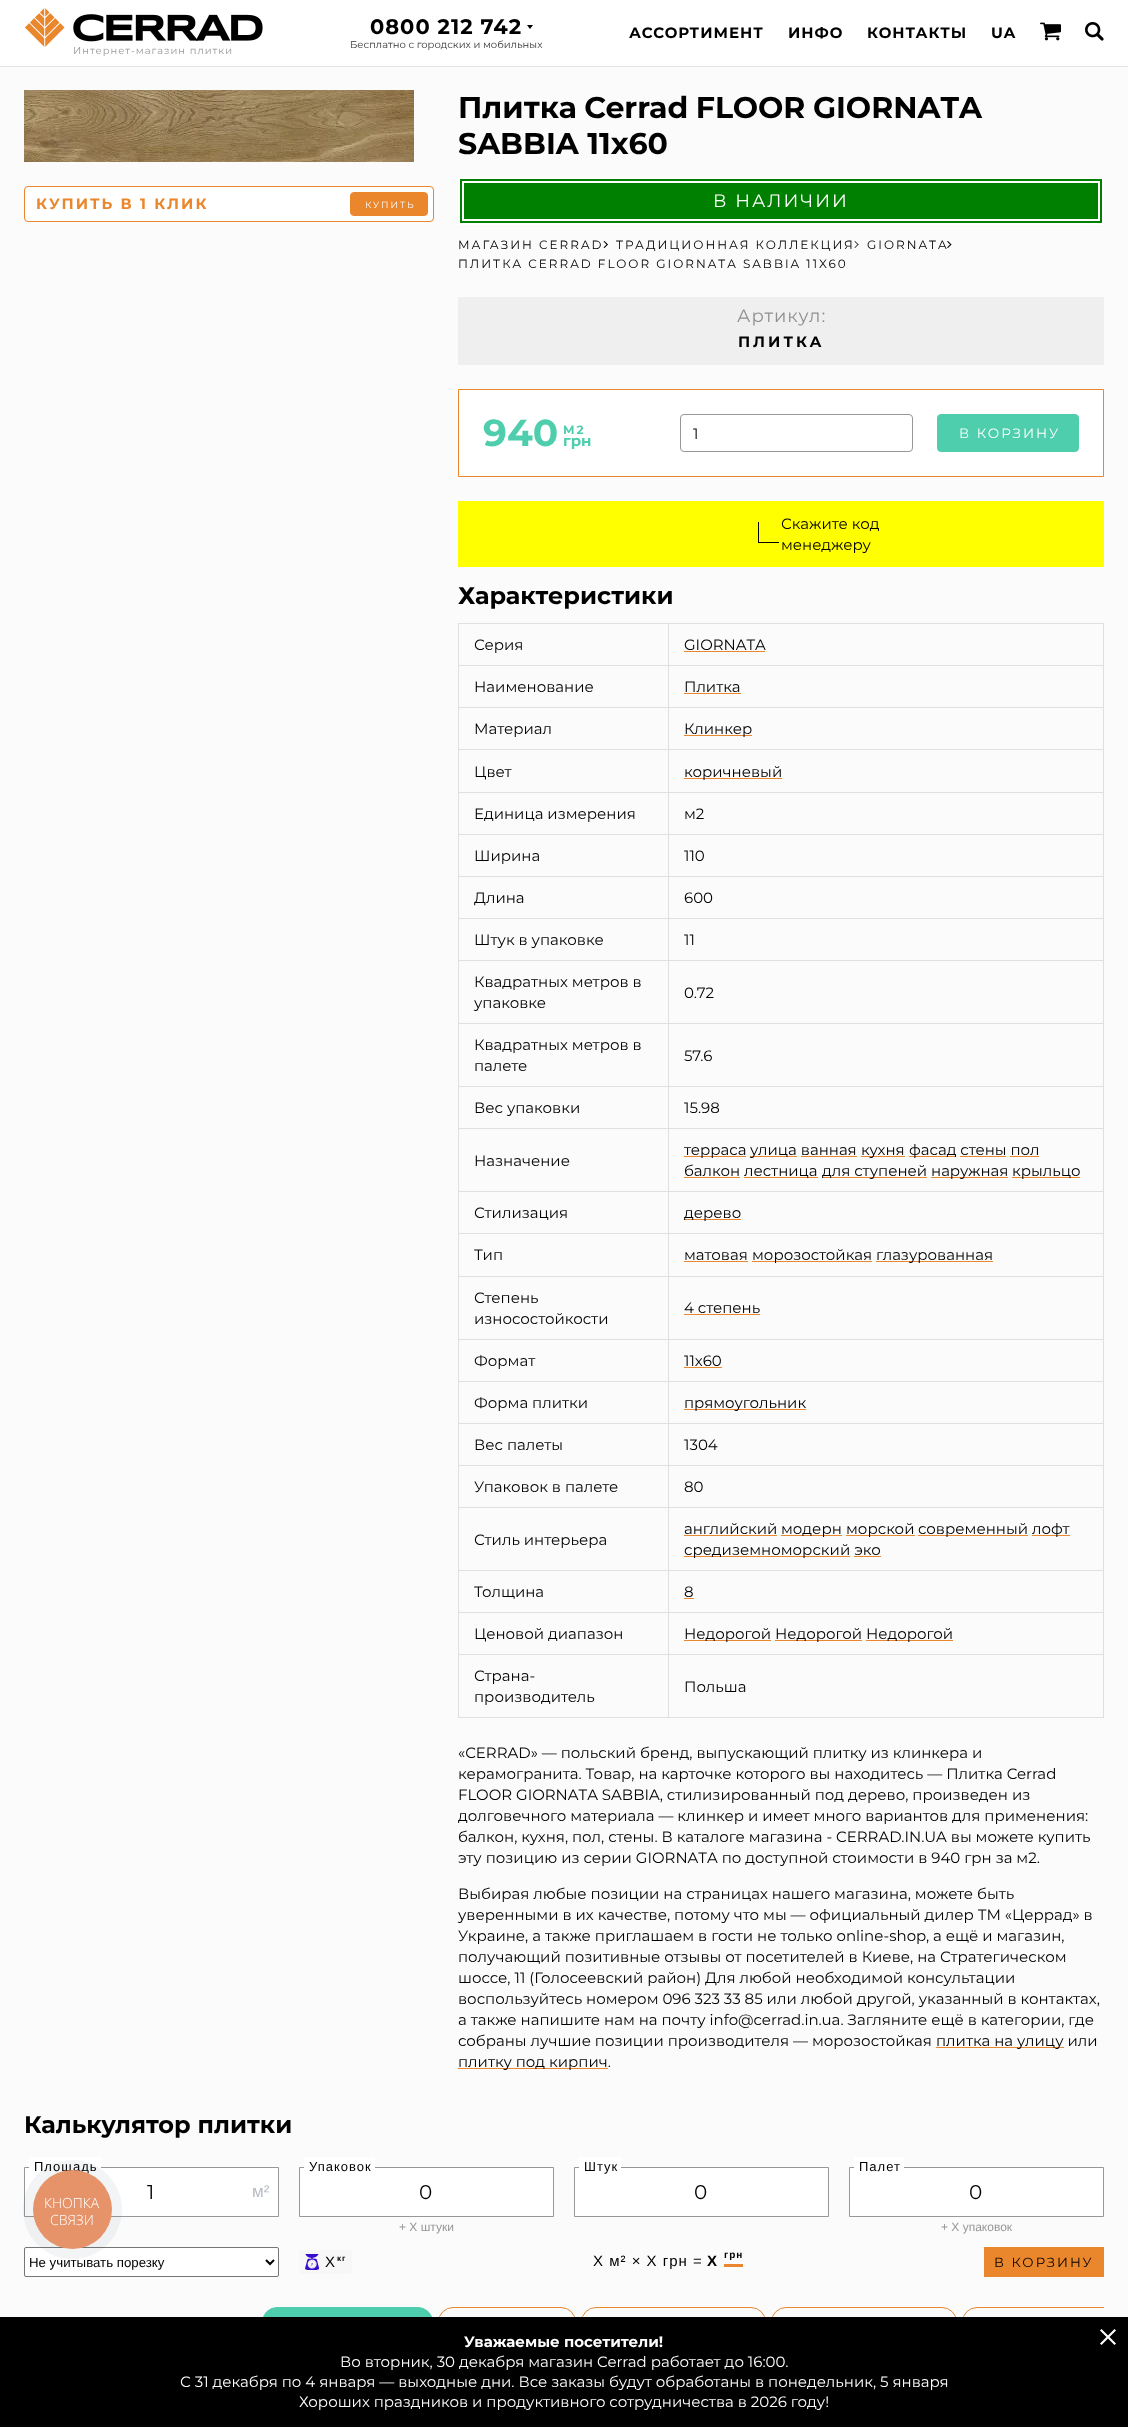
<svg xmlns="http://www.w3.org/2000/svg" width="1128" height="2427">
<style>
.a{font:bold 21px Montserrat;letter-spacing:1px;fill:#000}
.b{font:10px Montserrat;fill:#333}
.c{font:bold 15px Montserrat;letter-spacing:1px;fill:#000}
.d{font:10px Montserrat;letter-spacing:1px;fill:#979797}
.e{font:bold 15px Montserrat;letter-spacing:2px;fill:#ea862c}
.f{font:9px Montserrat;letter-spacing:2px;fill:#fff}
.g{font:bold 30px Montserrat;fill:#000}
.h{font:18px Montserrat;letter-spacing:2px;fill:#fff}
.i{font:12px Montserrat;letter-spacing:2px;fill:#000}
.j{font:18px Montserrat;letter-spacing:1px;fill:#8f8f8f}
.k{font:bold 15px Montserrat;letter-spacing:3px;fill:#000}
.l{font:bold 37.5px Montserrat;fill:#4fcead}
.m{font:bold 12px Montserrat;letter-spacing:2px;fill:#4fcead}
.n{font:bold 15px Montserrat;fill:#4fcead}
.o{font:15px Montserrat;fill:#000}
.p{font:13.5px Montserrat;letter-spacing:2px;fill:#fff}
.q{font:bold 24px Montserrat;fill:#000}
.r{font:13px Liberation Sans;letter-spacing:1px;fill:#000}
.s{font:20px Montserrat;letter-spacing:1px;fill:#000}
.t{font:17px Liberation Sans;fill:#b6bcc3}
.u{font:12px Liberation Sans;fill:#979797}
.v{font:13.25px Liberation Sans;fill:#000}
.w{font:15px Liberation Sans;letter-spacing:1px;fill:#000}
.x{font:bold 8px Liberation Sans;letter-spacing:1px;fill:#000}
.y{font:bold 15px Liberation Sans;letter-spacing:1px;fill:#000}
.z{font:bold 10px Liberation Sans;letter-spacing:1px;fill:#000}
.a1{font:13.25px Montserrat;letter-spacing:2px;fill:#000}
.b1{font:300 14px Open Sans;fill:#fff}
.c1{font:bold 15px Montserrat;fill:#fff}
.d1{font:15px Montserrat;fill:#fff}
</style>
<defs>
<clipPath id="clip1"><path d="M262 2307h842v42H262z"/></clipPath>
</defs>
<rect width="100%" height="100%" fill="#fbfbfb"/>
<path fill="#e2e2e2" d="M0 66h1128v1H0z"/>
<path fill="#fff" d="M0 0h1128v66H0z"/>
<path fill="#000" d="M527 25h6l-3 4z"/>
<image href="1.png" x="1040" y="22" width="21" height="19"/>
<image href="2.png" x="1085" y="22" width="19" height="19"/>
<image href="3.png" x="25" y="8" width="238" height="39"/>
<image href="4.png" x="24" y="90" width="390" height="72"/>
<rect fill="#fff" stroke="#ea862c" x="24.5" y="186.5" width="409" height="35" rx="3.5"/>
<rect fill="#ea862c" stroke="#ea862c" x="350.5" y="192.5" width="77" height="23" rx="3.5"/>
<path fill="#008000" stroke="#fff" stroke-width="2" d="M459 178h644v46H459z"/>
<path fill="none" stroke="#fff" stroke-width="2" d="M463 182h636v38H463z"/>
<path fill="#000" d="M603.5 241.5l1-.5l3.5 3.5l-1 .5z"/>
<path fill="#000" d="M603.5 247.5l3.5-3.5l1 .5l-3.5 3.5z"/>
<path fill="#000" d="M854.5 241.5l.5-.5l3.5 3.5l-.5 .5z"/>
<path fill="#000" d="M854.5 247.5l3.5-3.5l.5 .5l-3.5 3.5z"/>
<path fill="#000" d="M947 241.5l1-.5l3.5 3.5l-1 .5z"/>
<path fill="#000" d="M947 247.5l3.5-3.5l1 .5l-3.5 3.5z"/>
<path fill="none" stroke="#efefef" stroke-width="4" d="M460 299h642v64H460z"/>
<path fill="#efefef" d="M462 301h638v60H462z"/>
<path fill="#fff" stroke="#ea862c" d="M458.5 389.5h645v87H458.5z"/>
<rect fill="none" stroke="#979797" x="680.5" y="414.5" width="232" height="37" rx="3.5"/>
<rect fill="#4fcead" stroke="#4fcead" x="937.5" y="414.5" width="141" height="37" rx="3.5"/>
<path fill="#ff0" d="M458 501h646v66H458z"/>
<path fill="#000" d="M758 542h21v1H758z"/>
<path fill="#000" d="M758 522h1v21H758z"/>
<path fill="#e0e0e0" d="M458 623h646v1H458z"/>
<path fill="#e0e0e0" d="M1103 623h1v1095H1103z"/>
<path fill="#e0e0e0" d="M458 1717h646v1H458z"/>
<path fill="#e0e0e0" d="M458 623h1v1095H458z"/>
<path fill="#e0e0e0" d="M668 665h436v1H668z"/>
<path fill="#e0e0e0" d="M668 707h436v1H668z"/>
<path fill="#e0e0e0" d="M668 749h436v1H668z"/>
<path fill="#e0e0e0" d="M668 792h436v1H668z"/>
<path fill="#e0e0e0" d="M668 834h436v1H668z"/>
<path fill="#e0e0e0" d="M668 876h436v1H668z"/>
<path fill="#e0e0e0" d="M668 918h436v1H668z"/>
<path fill="#e0e0e0" d="M668 960h436v1H668z"/>
<path fill="#e0e0e0" d="M668 1023h436v1H668z"/>
<path fill="#e0e0e0" d="M668 1086h436v1H668z"/>
<path fill="#e0e0e0" d="M668 1128h436v1H668z"/>
<path fill="#e0e0e0" d="M668 1191h436v1H668z"/>
<path fill="#e0e0e0" d="M668 1233h436v1H668z"/>
<path fill="#e0e0e0" d="M668 1276h436v1H668z"/>
<path fill="#e0e0e0" d="M668 1339h436v1H668z"/>
<path fill="#e0e0e0" d="M668 1381h436v1H668z"/>
<path fill="#e0e0e0" d="M668 1423h436v1H668z"/>
<path fill="#e0e0e0" d="M668 1465h436v1H668z"/>
<path fill="#e0e0e0" d="M668 1507h436v1H668z"/>
<path fill="#e0e0e0" d="M668 1570h436v1H668z"/>
<path fill="#e0e0e0" d="M668 1612h436v1H668z"/>
<path fill="#e0e0e0" d="M668 1654h436v1H668z"/>
<path fill="#e0e0e0" d="M668 1654h1v64H668z"/>
<path fill="#e0e0e0" d="M458 1654h211v1H458z"/>
<path fill="#e0e0e0" d="M668 1612h1v43H668z"/>
<path fill="#e0e0e0" d="M458 1612h211v1H458z"/>
<path fill="#e0e0e0" d="M668 1570h1v43H668z"/>
<path fill="#e0e0e0" d="M458 1570h211v1H458z"/>
<path fill="#e0e0e0" d="M668 1507h1v64H668z"/>
<path fill="#e0e0e0" d="M458 1507h211v1H458z"/>
<path fill="#e0e0e0" d="M668 1465h1v43H668z"/>
<path fill="#e0e0e0" d="M458 1465h211v1H458z"/>
<path fill="#e0e0e0" d="M668 1423h1v43H668z"/>
<path fill="#e0e0e0" d="M458 1423h211v1H458z"/>
<path fill="#e0e0e0" d="M668 1381h1v43H668z"/>
<path fill="#e0e0e0" d="M458 1381h211v1H458z"/>
<path fill="#e0e0e0" d="M668 1339h1v43H668z"/>
<path fill="#e0e0e0" d="M458 1339h211v1H458z"/>
<path fill="#e0e0e0" d="M668 1276h1v64H668z"/>
<path fill="#e0e0e0" d="M458 1276h211v1H458z"/>
<path fill="#e0e0e0" d="M668 1233h1v44H668z"/>
<path fill="#e0e0e0" d="M458 1233h211v1H458z"/>
<path fill="#e0e0e0" d="M668 1191h1v43H668z"/>
<path fill="#e0e0e0" d="M458 1191h211v1H458z"/>
<path fill="#e0e0e0" d="M668 1128h1v64H668z"/>
<path fill="#e0e0e0" d="M458 1128h211v1H458z"/>
<path fill="#e0e0e0" d="M668 1086h1v43H668z"/>
<path fill="#e0e0e0" d="M458 1086h211v1H458z"/>
<path fill="#e0e0e0" d="M668 1023h1v64H668z"/>
<path fill="#e0e0e0" d="M458 1023h211v1H458z"/>
<path fill="#e0e0e0" d="M668 960h1v64H668z"/>
<path fill="#e0e0e0" d="M458 960h211v1H458z"/>
<path fill="#e0e0e0" d="M668 918h1v43H668z"/>
<path fill="#e0e0e0" d="M458 918h211v1H458z"/>
<path fill="#e0e0e0" d="M668 876h1v43H668z"/>
<path fill="#e0e0e0" d="M458 876h211v1H458z"/>
<path fill="#e0e0e0" d="M668 834h1v43H668z"/>
<path fill="#e0e0e0" d="M458 834h211v1H458z"/>
<path fill="#e0e0e0" d="M668 792h1v43H668z"/>
<path fill="#e0e0e0" d="M458 792h211v1H458z"/>
<path fill="#e0e0e0" d="M668 749h1v44H668z"/>
<path fill="#e0e0e0" d="M458 749h211v1H458z"/>
<path fill="#e0e0e0" d="M668 707h1v43H668z"/>
<path fill="#e0e0e0" d="M458 707h211v1H458z"/>
<path fill="#e0e0e0" d="M668 665h1v43H668z"/>
<path fill="#e0e0e0" d="M458 665h211v1H458z"/>
<path fill="#e0e0e0" d="M668 623h1v43H668z"/>
<path fill="#ea862c" d="M684 651h81v1H684z"/>
<path fill="#ea862c" d="M684 693h57v1H684z"/>
<path fill="#ea862c" d="M684 735h68v1H684z"/>
<path fill="#ea862c" d="M684 778h98v1H684z"/>
<path fill="#ea862c" d="M684 1156h62v1H684z"/>
<path fill="#ea862c" d="M750 1156h47v1H750z"/>
<path fill="#ea862c" d="M861 1156h44v1H861z"/>
<path fill="#ea862c" d="M909 1156h47v1H909z"/>
<path fill="#ea862c" d="M684 1177h56v1H684z"/>
<path fill="#ea862c" d="M744 1177h74v1H744z"/>
<path fill="#ea862c" d="M822 1177h105v1H822z"/>
<path fill="#ea862c" d="M931 1177h77v1H931z"/>
<path fill="#ea862c" d="M1012 1177h68v1H1012z"/>
<path fill="#ea862c" d="M684 1219h57v1H684z"/>
<path fill="#ea862c" d="M684 1261h64v1H684z"/>
<path fill="#ea862c" d="M752 1261h120v1H752z"/>
<path fill="#ea862c" d="M876 1261h117v1H876z"/>
<path fill="#ea862c" d="M684 1314h76v1H684z"/>
<path fill="#ea862c" d="M684 1367h38v1H684z"/>
<path fill="#ea862c" d="M684 1409h122v1H684z"/>
<path fill="#ea862c" d="M684 1535h93v1H684z"/>
<path fill="#ea862c" d="M781 1535h61v1H781z"/>
<path fill="#ea862c" d="M846 1535h69v1H846z"/>
<path fill="#ea862c" d="M918 1535h110v1H918z"/>
<path fill="#ea862c" d="M1032 1535h38v1H1032z"/>
<path fill="#ea862c" d="M684 1556h166v1H684z"/>
<path fill="#ea862c" d="M684 1598h10v1H684z"/>
<path fill="#ea862c" d="M684 1640h87v1H684z"/>
<path fill="#ea862c" d="M775 1640h87v1H775z"/>
<path fill="#ea862c" d="M866 1640h87v1H866z"/>
<path fill="#ea862c" d="M936 2047h128v1H936z"/>
<path fill="#ea862c" d="M458 2068h150v1H458z"/>
<path fill="#fff" stroke="#979797" d="M24.5 2167.5h254v49H24.5z"/>
<path fill="#fff" d="M29 2157h72v11H29z"/>
<path fill="#fff" stroke="#979797" d="M299.5 2167.5h254v49H299.5z"/>
<path fill="#fff" d="M304 2157h71v11H304z"/>
<path fill="#fff" stroke="#979797" d="M574.5 2167.5h254v49H574.5z"/>
<path fill="#fff" d="M579 2157h42v11H579z"/>
<path fill="#fff" stroke="#979797" d="M849.5 2167.5h254v49H849.5z"/>
<path fill="#fff" d="M854 2157h50v11H854z"/>
<rect fill="#fff" stroke="#767676" x="24.5" y="2247.5" width="254" height="29" rx="1.5"/>
<path fill="none" stroke="#000" stroke-width="2" d="M266 2260l4 4l4-4"/>
<rect fill="#f7f7f7" x="299" y="2250" width="53" height="24" rx="4"/>
<image href="5.png" x="305" y="2254" width="14" height="16"/>
<path fill="#ea862c" d="M724 2264h19v3H724z"/>
<path fill="#ea862c" d="M984 2247h120v30H984z"/>
<rect fill="#4fcead" stroke="#4fcead" x="262.5" y="2307.5" width="170" height="31" rx="14.5"/>
<rect fill="none" stroke="#ea862c" x="438.5" y="2307.5" width="137" height="31" rx="14.5"/>
<rect fill="none" stroke="#ea862c" x="581.5" y="2307.5" width="184" height="31" rx="14.5"/>
<rect fill="none" stroke="#ea862c" x="771.5" y="2307.5" width="185" height="31" rx="14.5"/>
<g clip-path="url(#clip1)">
<rect fill="none" stroke="#ea862c" x="962.5" y="2307.5" width="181" height="31" rx="14.5"/>
</g>
<circle fill="#2a405d0f" cx="72.5" cy="2209.5" r="49.5"/>
<path fill="#000" d="M0 2317h1128v110H0z"/>
<path fill="#fff" d="M1114.5 2329l1.5 1.5l-14.5 14.5l-1.5-1.5z"/>
<path fill="#fff" d="M1101.5 2329l14.5 14.5l-1.5 1.5l-14.5-14.5z"/>
<text class="a" x="370" y="34">0800 212 742</text>
<text class="b" x="350" y="48">Бесплатно с городских и мобильных</text>
<text class="c" x="629" y="38">АССОРТИМЕНТ</text>
<text class="c" x="788" y="38">ИНФО</text>
<text class="c" x="867" y="38">КОНТАКТЫ</text>
<text class="c" x="991" y="38">UA</text>
<text class="d" x="73" y="54">Интернет-магазин плитки</text>
<text class="e" x="36" y="209">КУПИТЬ В 1 КЛИК</text>
<text class="f" x="365" y="208">КУПИТЬ</text>
<text class="g" x="458" y="118" word-spacing="-1">Плитка Cerrad FLOOR GIORNATA</text>
<text class="g" x="458" y="154">SABBIA 11x60</text>
<text class="h" x="713" y="207">В НАЛИЧИИ</text>
<text class="i" x="458" y="249">МАГАЗИН CERRAD</text>
<text class="i" x="616" y="249">ТРАДИЦИОННАЯ КОЛЛЕКЦИЯ</text>
<text class="i" x="867" y="249">GIORNATA</text>
<text class="i" x="458" y="268">ПЛИТКА CERRAD FLOOR GIORNATA SABBIA 11X60</text>
<text class="j" x="737" y="322">Артикул:</text>
<text class="k" x="738" y="347">ПЛИТКА</text>
<text class="l" x="483" y="446">940</text>
<text class="m" x="563" y="434">М2</text>
<text class="n" x="563" y="446">грн</text>
<text class="o" x="693" y="439">1</text>
<text class="p" x="959" y="438">В КОРЗИНУ</text>
<text class="o" x="781" y="529">Скажите код</text>
<text class="o" x="781" y="550">менеджеру</text>
<text class="q" x="458" y="604">Характеристики</text>
<text class="o" x="474" y="650">Серия</text>
<text class="o" x="684" y="650">GIORNATA</text>
<text class="o" x="474" y="692">Наименование</text>
<text class="o" x="684" y="692">Плитка</text>
<text class="o" x="474" y="734">Материал</text>
<text class="o" x="684" y="734">Клинкер</text>
<text class="o" x="474" y="777">Цвет</text>
<text class="o" x="684" y="777">коричневый</text>
<text class="o" x="474" y="819">Единица измерения</text>
<text class="o" x="684" y="819">м2</text>
<text class="o" x="474" y="861">Ширина</text>
<text class="o" x="684" y="861">110</text>
<text class="o" x="474" y="903">Длина</text>
<text class="o" x="684" y="903">600</text>
<text class="o" x="474" y="945">Штук в упаковке</text>
<text class="o" x="684" y="945">11</text>
<text class="o" x="474" y="987">Квадратных метров в</text>
<text class="o" x="474" y="1008">упаковке</text>
<text class="o" x="684" y="998">0.72</text>
<text class="o" x="474" y="1050">Квадратных метров в</text>
<text class="o" x="474" y="1071">палете</text>
<text class="o" x="684" y="1061">57.6</text>
<text class="o" x="474" y="1113">Вес упаковки</text>
<text class="o" x="684" y="1113">15.98</text>
<text class="o" x="474" y="1166">Назначение</text>
<text class="o" x="684" y="1155">терраса</text>
<text class="o" x="750" y="1155">улица ванная</text>
<text class="o" x="861" y="1155">кухня</text>
<text class="o" x="909" y="1155">фасад стены пол</text>
<path fill="#ea862c" d="M801 1156h56v1H801z"/>
<path fill="#ea862c" d="M960 1156h46v1H960z"/>
<path fill="#ea862c" d="M1010 1156h29v1H1010z"/>
<text class="o" x="684" y="1176">балкон</text>
<text class="o" x="744" y="1176">лестница</text>
<text class="o" x="822" y="1176">для ступеней</text>
<text class="o" x="931" y="1176">наружная</text>
<text class="o" x="1012" y="1176">крыльцо</text>
<text class="o" x="474" y="1218">Стилизация</text>
<text class="o" x="684" y="1218">дерево</text>
<text class="o" x="474" y="1260">Тип</text>
<text class="o" x="684" y="1260">матовая</text>
<text class="o" x="752" y="1260">морозостойкая</text>
<text class="o" x="876" y="1260">глазурованная</text>
<text class="o" x="474" y="1303">Степень</text>
<text class="o" x="474" y="1324">износостойкости</text>
<text class="o" x="684" y="1313">4 степень</text>
<text class="o" x="474" y="1366">Формат</text>
<text class="o" x="684" y="1366">11x60</text>
<text class="o" x="474" y="1408">Форма плитки</text>
<text class="o" x="684" y="1408">прямоугольник</text>
<text class="o" x="474" y="1450">Вес палеты</text>
<text class="o" x="684" y="1450">1304</text>
<text class="o" x="474" y="1492">Упаковок в палете</text>
<text class="o" x="684" y="1492">80</text>
<text class="o" x="474" y="1545">Стиль интерьера</text>
<text class="o" x="684" y="1534">английский</text>
<text class="o" x="781" y="1534">модерн</text>
<text class="o" x="846" y="1534">морской</text>
<text class="o" x="918" y="1534">современный</text>
<text class="o" x="1032" y="1534">лофт</text>
<text class="o" x="684" y="1555">средиземноморский эко</text>
<path fill="#ea862c" d="M854 1556h27v1H854z"/>
<text class="o" x="474" y="1597">Толщина</text>
<text class="o" x="684" y="1597">8</text>
<text class="o" x="474" y="1639">Ценовой диапазон</text>
<text class="o" x="684" y="1639">Недорогой</text>
<text class="o" x="775" y="1639">Недорогой</text>
<text class="o" x="866" y="1639">Недорогой</text>
<text class="o" x="474" y="1681">Страна-</text>
<text class="o" x="474" y="1702">производитель</text>
<text class="o" x="684" y="1692">Польша</text>
<text class="o" x="458" y="1758">«CERRAD» — польский бренд, выпускающий плитку из клинкера и</text>
<text class="o" x="458" y="1779">керамогранита. Товар, на карточке которого вы находитесь — Плитка Cerrad</text>
<text class="o" x="458" y="1800">FLOOR GIORNATA SABBIA, стилизированный под дерево, произведен из</text>
<text class="o" x="458" y="1821">долговечного материала — клинкер и имеет много вариантов для применения:</text>
<text class="o" x="458" y="1842">балкон, кухня, пол, стены. В каталоге магазина - CERRAD.IN.UA вы можете купить</text>
<text class="o" x="458" y="1863">эту позицию из серии GIORNATA по доступной стоимости в 940 грн за м2.</text>
<text class="o" x="458" y="1899">Выбирая любые позиции на страницах нашего магазина, можете быть</text>
<text class="o" x="458" y="1920">уверенными в их качестве, потому что мы — официальный дилер ТМ «Церрад» в</text>
<text class="o" x="458" y="1941">Украине, а также приглашаем в гости не только online-shop, а ещё и магазин,</text>
<text class="o" x="458" y="1962">получающий позитивные отзывы от посетителей в Киеве, на Стратегическом</text>
<text class="o" x="458" y="1983">шоссе, 11 (Голосеевский район) Для любой необходимой консультации</text>
<text class="o" x="458" y="2004">воспользуйтесь номером 096 323 33 85 или любой другой, указанный в контактах,</text>
<text class="o" x="458" y="2025">а также напишите нам на почту info@cerrad.in.ua. Загляните ещё в категории, где</text>
<text class="o" x="458" y="2046">собраны лучшие позиции производителя — морозостойкая</text>
<text class="o" x="936" y="2046">плитка на улицу или</text>
<text class="o" x="458" y="2067">плитку под кирпич.</text>
<text class="q" x="24" y="2133">Калькулятор плитки</text>
<text class="r" x="34" y="2171">Площадь</text>
<text class="s" x="147" y="2199">1</text>
<text class="t" x="252" y="2197">м²</text>
<text class="r" x="309" y="2171">Упаковок</text>
<text class="s" x="419" y="2199">0</text>
<text class="u" x="399" y="2231">+ X штуки</text>
<text class="r" x="584" y="2171">Штук</text>
<text class="s" x="694" y="2199">0</text>
<text class="r" x="859" y="2171">Палет</text>
<text class="s" x="969" y="2199">0</text>
<text class="u" x="941" y="2231">+ X упаковок</text>
<text class="v" x="29" y="2267">Не учитывать порезку</text>
<text class="w" x="325" y="2267">X</text>
<text class="x" x="337" y="2261">кг</text>
<text class="w" x="593" y="2266">X м² × X грн =</text>
<text class="y" x="707" y="2266">X</text>
<text class="z" x="724" y="2258">грн</text>
<text class="a1" x="994" y="2267">В КОРЗИНУ</text>
<circle fill="#e6936a" cx="72.5" cy="2209.5" r="39.5"/>
<text class="b1" x="44" y="2208">КНОПКА</text>
<text class="b1" x="50" y="2225">СВЯЗИ</text>
<text class="c1" x="464" y="2347">Уважаемые посетители!</text>
<text class="d1" x="340" y="2367">Во вторник, 30 декабря магазин Cerrad работает до 16:00.</text>
<text class="d1" x="180" y="2387">С 31 декабря по 4 января — выходные дни. Все заказы будут обработаны в понедельник, 5 января</text>
<text class="d1" x="299" y="2407">Хороших праздников и продуктивного сотрудничества в 2026 году!</text>
</svg>
